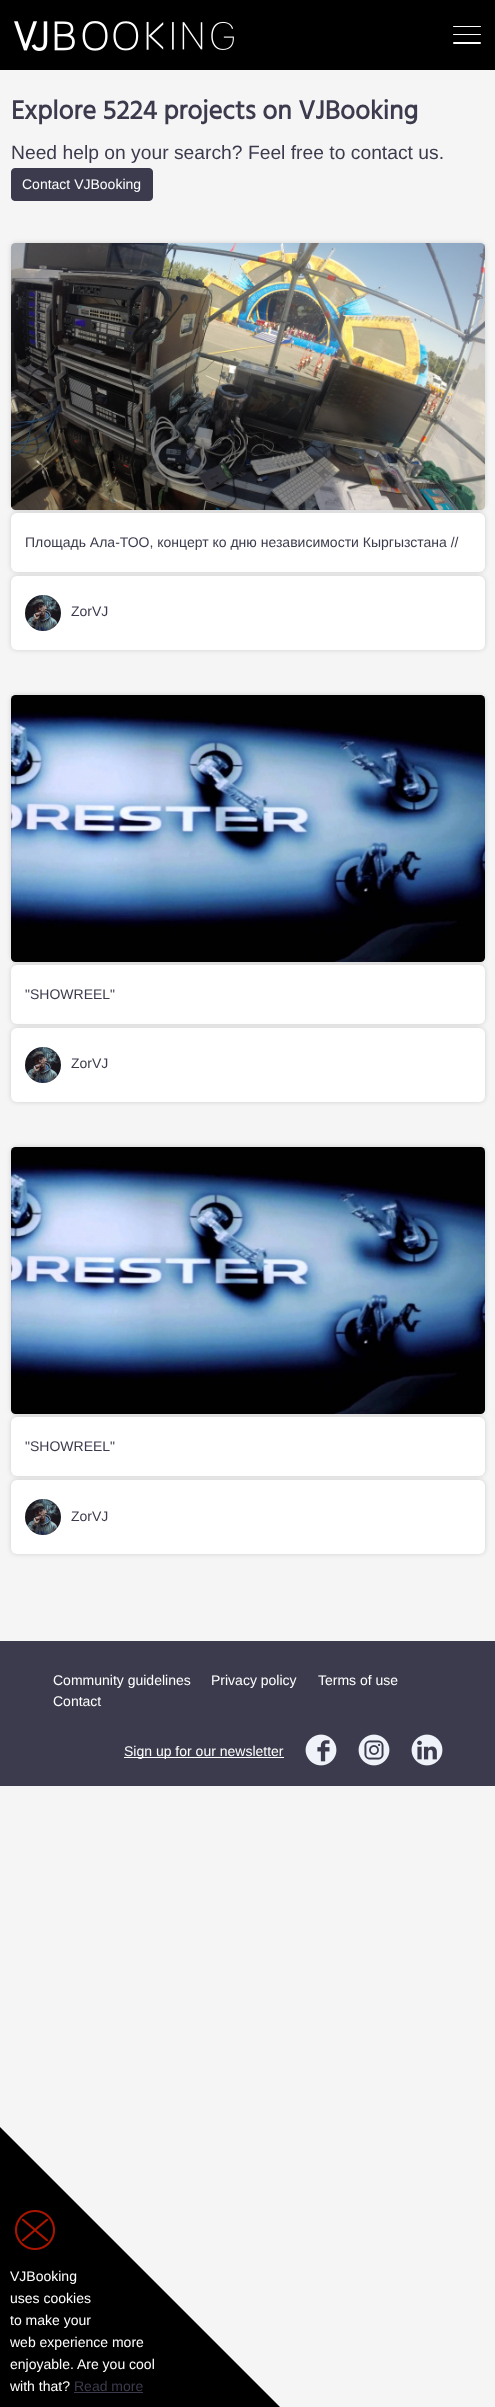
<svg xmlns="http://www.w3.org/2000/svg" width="495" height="2407">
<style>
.a{font:bold 26.7px Hind;fill:#3b3b4d}
.b{font:19.3px Liberation Sans;fill:#3b3b4d}
.c{font:14px Liberation Sans;fill:#fff}
.d{font:14px Liberation Sans;fill:#3b3b4d}
</style>
<rect width="100%" height="100%" fill="#f5f5f5"/>
<path fill="#000" d="M0 0h495v70H0z"/>
<image href="1.png" x="14" y="21" width="220" height="30"/>
<rect fill="#fff" x="453" y="34" width="28" height="1" rx="0.5"/>
<rect fill="#fff" x="453" y="26" width="28" height="1" rx="0.5"/>
<rect fill="#fff" x="453" y="42" width="28" height="2" rx="1"/>
<rect fill="#3b3b4d" stroke="#3b3b4d" x="11.5" y="168.5" width="141" height="32" rx="3.5"/>
<rect fill="#00000026" filter="blur(2.5px)" x="11" y="243" width="474" height="267" rx="6"/>
<image href="2.png" x="11" y="243" width="474" height="267"/>
<rect fill="#00000026" filter="blur(2.5px)" x="11" y="513" width="474" height="59" rx="6"/>
<rect fill="#fff" x="11" y="513" width="474" height="59" rx="6"/>
<rect fill="#00000026" filter="blur(2.5px)" x="11" y="576" width="474" height="74" rx="6"/>
<rect fill="#fff" x="11" y="576" width="474" height="74" rx="6"/>
<image href="3.png" x="25" y="595" width="36" height="36"/>
<rect fill="#00000026" filter="blur(2.5px)" x="11" y="695" width="474" height="267" rx="6"/>
<image href="4.png" x="11" y="695" width="474" height="267"/>
<rect fill="#00000026" filter="blur(2.5px)" x="11" y="965" width="474" height="59" rx="6"/>
<rect fill="#fff" x="11" y="965" width="474" height="59" rx="6"/>
<rect fill="#00000026" filter="blur(2.5px)" x="11" y="1028" width="474" height="74" rx="6"/>
<rect fill="#fff" x="11" y="1028" width="474" height="74" rx="6"/>
<image href="3.png" x="25" y="1047" width="36" height="36"/>
<rect fill="#00000026" filter="blur(2.5px)" x="11" y="1147" width="474" height="267" rx="6"/>
<image href="4.png" x="11" y="1147" width="474" height="267"/>
<rect fill="#00000026" filter="blur(2.5px)" x="11" y="1417" width="474" height="59" rx="6"/>
<rect fill="#fff" x="11" y="1417" width="474" height="59" rx="6"/>
<rect fill="#00000026" filter="blur(2.5px)" x="11" y="1480" width="474" height="74" rx="6"/>
<rect fill="#fff" x="11" y="1480" width="474" height="74" rx="6"/>
<image href="5.png" x="25" y="1499" width="36" height="36"/>
<path fill="#3b3b4d" d="M0 1641h495v145H0z"/>
<path fill="#fff" d="M124 1757h160v1H124z"/>
<image href="6.png" x="305" y="1734" width="32" height="32"/>
<image href="7.png" x="358" y="1734" width="32" height="32"/>
<image href="8.png" x="411" y="1734" width="32" height="32"/>
<path fill="#000" d="M280 2407h-280v-280z"/>
<image href="9.png" x="15" y="2210" width="40" height="40"/>
<path fill="#3b3b4d" d="M74 2392h69v1H74z"/>
<text class="a" x="11" y="119">Explore 5224 projects on VJBooking</text>
<text class="b" x="11" y="159">Need help on your search? Feel free to contact us.</text>
<text class="c" x="22" y="189">Contact VJBooking</text>
<text class="d" x="25" y="547">Площадь Ала-ТОО, концерт ко дню независимости Кыргызстана //</text>
<text class="d" x="71" y="616">ZorVJ</text>
<text class="d" x="25" y="999">"SHOWREEL"</text>
<text class="d" x="71" y="1068">ZorVJ</text>
<text class="d" x="25" y="1451">"SHOWREEL"</text>
<text class="d" x="71" y="1521">ZorVJ</text>
<text class="c" x="53" y="1685">Community guidelines</text>
<text class="c" x="211" y="1685">Privacy policy</text>
<text class="c" x="318" y="1685">Terms of use</text>
<text class="c" x="53" y="1706">Contact</text>
<text class="c" x="124" y="1756">Sign up for our newsletter</text>
<text class="c" x="10" y="2281">VJBooking</text>
<text class="c" x="10" y="2303">uses cookies</text>
<text class="c" x="10" y="2325">to make your</text>
<text class="c" x="10" y="2347">web experience more</text>
<text class="c" x="10" y="2369">enjoyable. Are you cool</text>
<text class="c" x="10" y="2391">with that?</text>
<text class="d" x="74" y="2391">Read more</text>
</svg>
